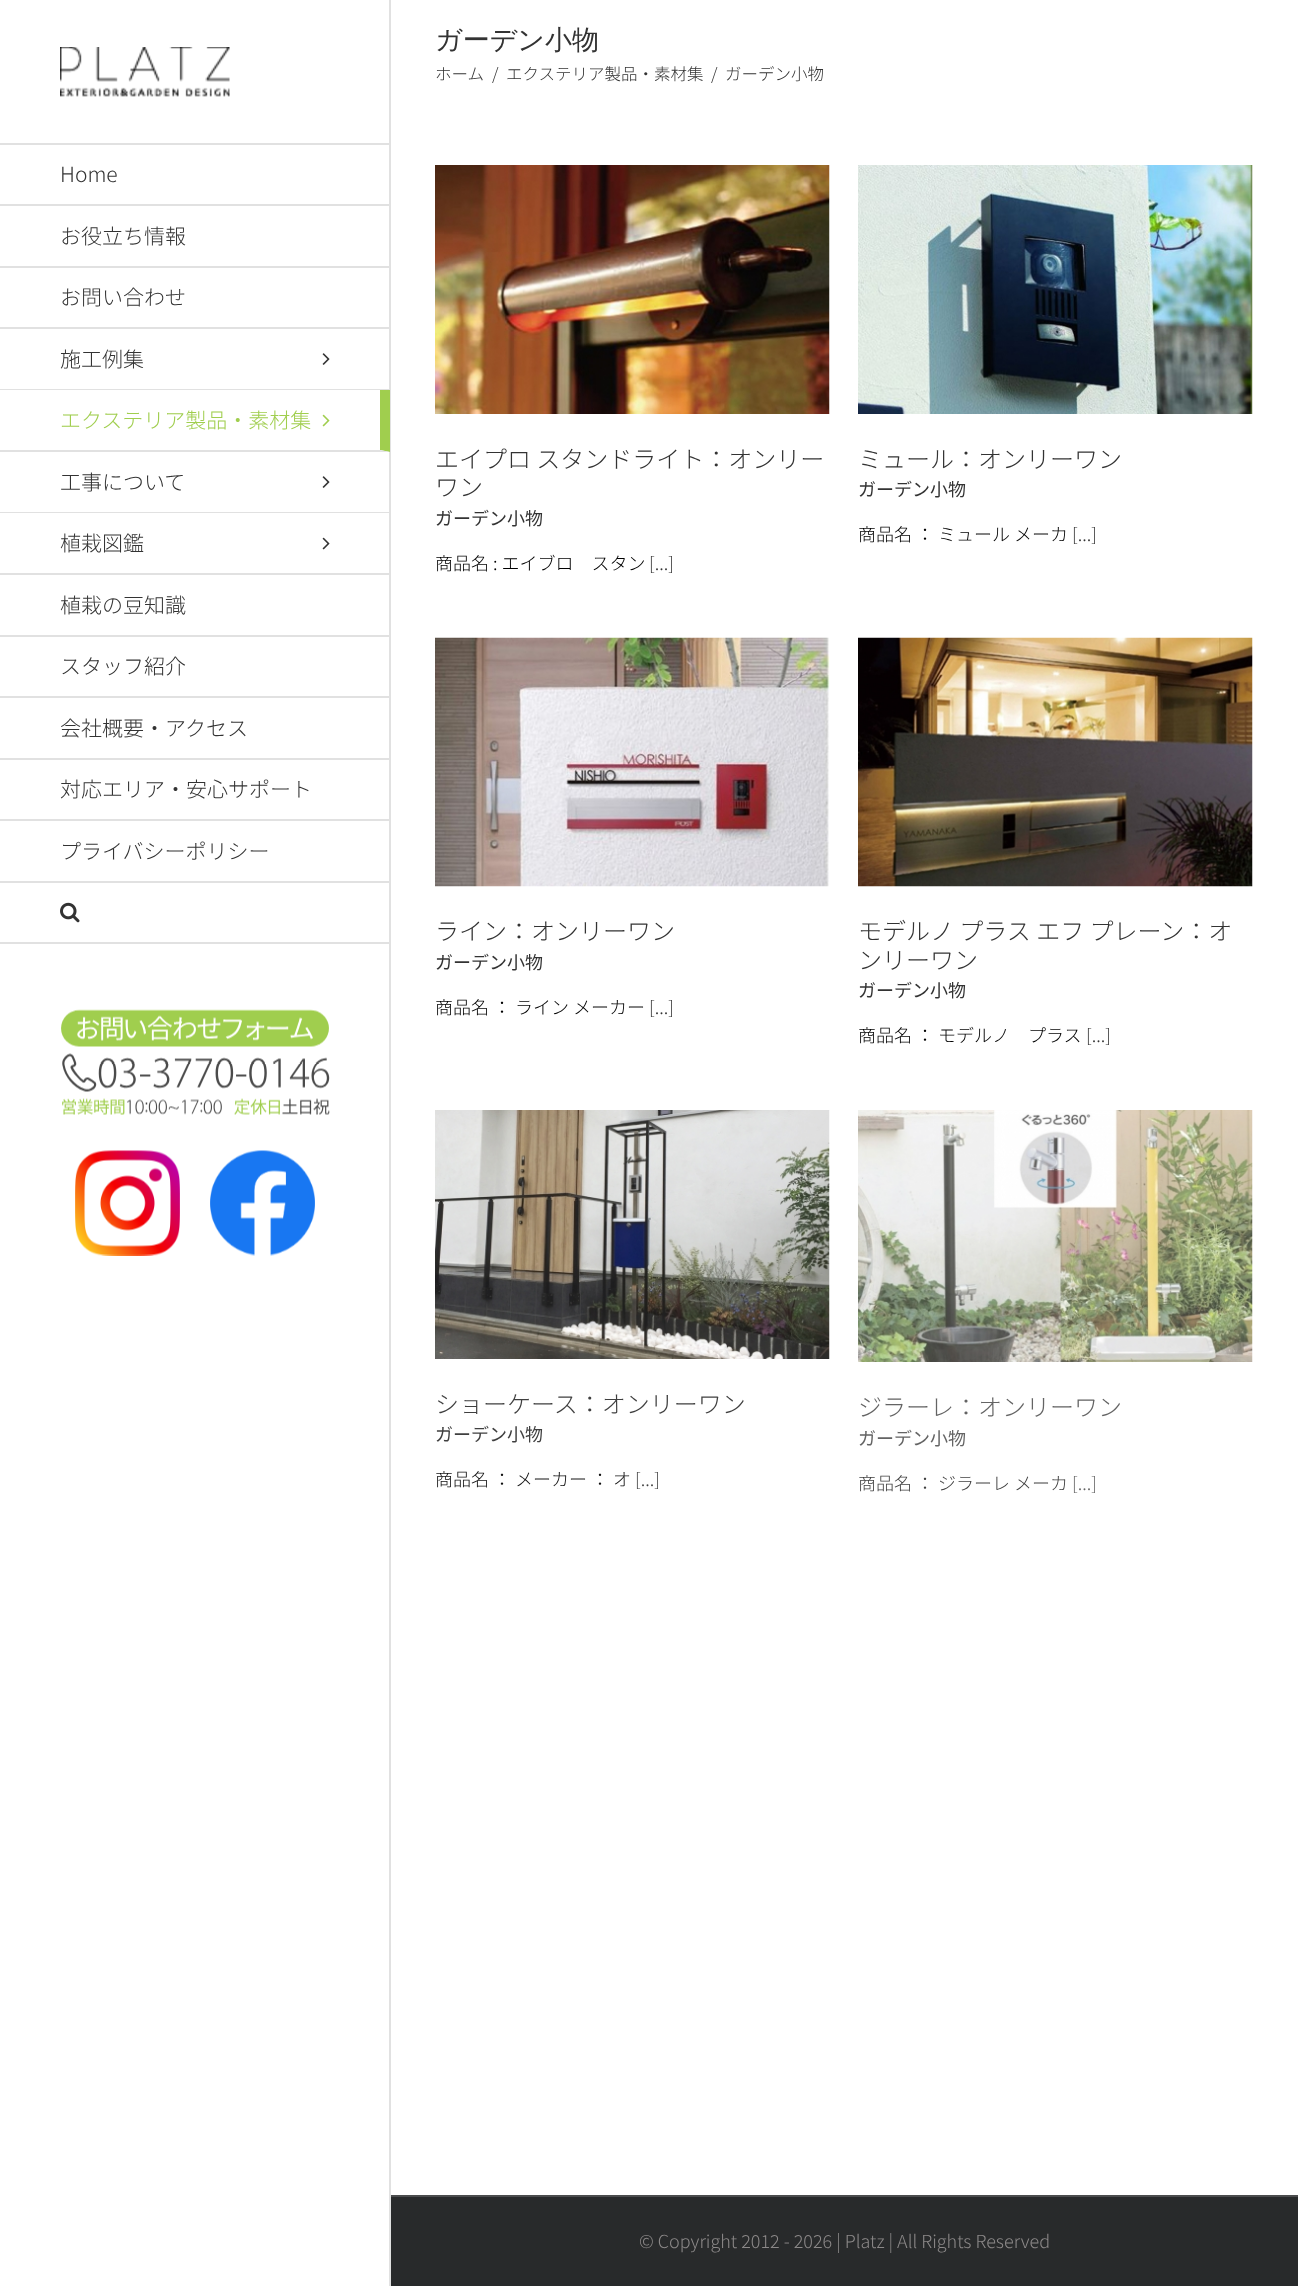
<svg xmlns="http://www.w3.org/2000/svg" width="1298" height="2286">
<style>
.a{font:500 27px WenQuanYi Zen Hei;fill:#333}
.b{font:300 16.5px Noto Sans JP;fill:#333}
.c{font:300 21px Noto Sans JP;fill:#333}
.d{font:300 21px Noto Sans JP;fill:#a0ce4e}
.e{font:300 24px Noto Sans JP;fill:#333}
.f{font:18px Noto Sans JP;fill:#333}
.g{font:300 18px Noto Sans JP;fill:#000}
.h{font:300 18px Noto Sans JP;fill:#333}
.i{font:300 24px Noto Sans JP;fill:#3f3f3f}
.j{font:18px Noto Sans JP;fill:#3f3f3f}
.k{font:300 18px Noto Sans JP;fill:#0f0f0f}
.l{font:300 18px Noto Sans JP;fill:#3f3f3f}
.m{font:300 24px Noto Sans JP;fill:#646464}
.n{font:18px Noto Sans JP;fill:#646464}
.o{font:300 18px Noto Sans JP;fill:#646464}
.p{font:300 18px Noto Sans JP;fill:#8c8989}
</style>
<rect width="100%" height="100%" fill="#fff"/>
<image href="1.png" x="60" y="47" width="170" height="50"/>
<path fill="#4b4c4d" d="M390 2195h908v2H390z"/>
<path fill="#e1e1e1" d="M389 0h2v2286H389z"/>
<path fill="#e1e1e1" d="M0 143h390v2H0z"/>
<path fill="#e1e1e1" d="M0 204h390v2H0z"/>
<path fill="#e1e1e1" d="M0 266h390v2H0z"/>
<path fill="#e1e1e1" d="M0 327h390v2H0z"/>
<path fill="#e1e1e1" d="M0 389h390v1H0z"/>
<image href="2.png" x="322" y="353" width="8" height="12"/>
<path fill="#a0ce4e" d="M390 390v62l-10-2v-60z"/>
<path fill="#e1e1e1" d="M390 452h-390v-2h380z"/>
<image href="3.png" x="322" y="414" width="8" height="13"/>
<path fill="#e1e1e1" d="M0 512h390v1H0z"/>
<image href="2.png" x="322" y="476" width="8" height="12"/>
<path fill="#e1e1e1" d="M0 573h390v2H0z"/>
<image href="4.png" x="322" y="537" width="8" height="13"/>
<path fill="#e1e1e1" d="M0 635h390v2H0z"/>
<path fill="#e1e1e1" d="M0 696h390v2H0z"/>
<path fill="#e1e1e1" d="M0 758h390v2H0z"/>
<path fill="#e1e1e1" d="M0 819h390v2H0z"/>
<path fill="#e1e1e1" d="M0 881h390v2H0z"/>
<path fill="#e1e1e1" d="M0 942h390v2H0z"/>
<image href="5.png" x="60" y="902" width="20" height="21"/>
<image href="6.png" x="61" y="1009" width="269" height="106"/>
<image href="7.png" x="75" y="1150" width="105" height="106"/>
<image href="8.png" x="210" y="1150" width="105" height="106"/>
<image href="9.png" x="435" y="165" width="395" height="249"/>
<image href="10.png" x="858" y="165" width="395" height="249"/>
<image href="11.png" x="435" y="637" width="395" height="250"/>
<image href="12.png" x="858" y="637" width="395" height="250"/>
<image href="13.png" x="435" y="1110" width="395" height="249"/>
<image href="14.png" x="858" y="1110" width="395" height="252"/>
<path fill="#282a2b" d="M391 2197h907v89H391z"/>
<text class="a" x="435" y="49">ガーデン小物</text>
<text class="b" x="435" y="80">ホーム</text>
<text class="b" x="492" y="80">/</text>
<text class="b" x="506" y="80">エクステリア製品・素材集</text>
<text class="b" x="711" y="80">/</text>
<text class="b" x="725" y="80">ガーデン小物</text>
<text class="c" x="60" y="182">Home</text>
<text class="c" x="60" y="244">お役立ち情報</text>
<text class="c" x="60" y="305">お問い合わせ</text>
<text class="c" x="60" y="367">施工例集</text>
<text class="d" x="60" y="428">エクステリア製品・素材集</text>
<text class="c" x="60" y="490">工事について</text>
<text class="c" x="60" y="551">植栽図鑑</text>
<text class="c" x="60" y="613">植栽の豆知識</text>
<text class="c" x="60" y="674">スタッフ紹介</text>
<text class="c" x="60" y="736">会社概要・アクセス</text>
<text class="c" x="60" y="797">対応エリア・安心サポート</text>
<text class="c" x="60" y="859">プライバシーポリシー</text>
<text class="e" x="435" y="468">エイプロ スタンドライト：オンリー</text>
<text class="e" x="435" y="496">ワン</text>
<text class="f" x="435" y="525">ガーデン小物</text>
<text class="g" x="435" y="570">商品名 : エイブロ　スタン</text>
<text class="h" x="649" y="570">[...]</text>
<text class="e" x="858" y="468">ミュール：オンリーワン</text>
<text class="f" x="858" y="496">ガーデン小物</text>
<text class="g" x="858" y="541">商品名 ： ミュール メーカ</text>
<text class="h" x="1072" y="541">[...]</text>
<text class="e" x="435" y="940">ライン：オンリーワン</text>
<text class="f" x="435" y="969">ガーデン小物</text>
<text class="g" x="435" y="1014">商品名 ： ライン メーカー</text>
<text class="h" x="649" y="1014">[...]</text>
<text class="e" x="858" y="940">モデルノ プラス エフ プレーン：オ</text>
<text class="e" x="858" y="969">ンリーワン</text>
<text class="f" x="858" y="997">ガーデン小物</text>
<text class="g" x="858" y="1042">商品名 ： モデルノ　プラス</text>
<text class="h" x="1086" y="1042">[...]</text>
<text class="i" x="435" y="1413">ショーケース：オンリーワン</text>
<text class="j" x="435" y="1441">ガーデン小物</text>
<text class="k" x="435" y="1486">商品名 ： メーカー ： オ</text>
<text class="l" x="635" y="1486">[...]</text>
<text class="m" x="858" y="1416">ジラーレ：オンリーワン</text>
<text class="n" x="858" y="1445">ガーデン小物</text>
<text class="l" x="858" y="1490">商品名 ： ジラーレ メーカ</text>
<text class="o" x="1072" y="1490">[...]</text>
<text class="p" x="639" y="2248">© Copyright 2012 - 2026 | Platz | All Rights Reserved</text>
</svg>
